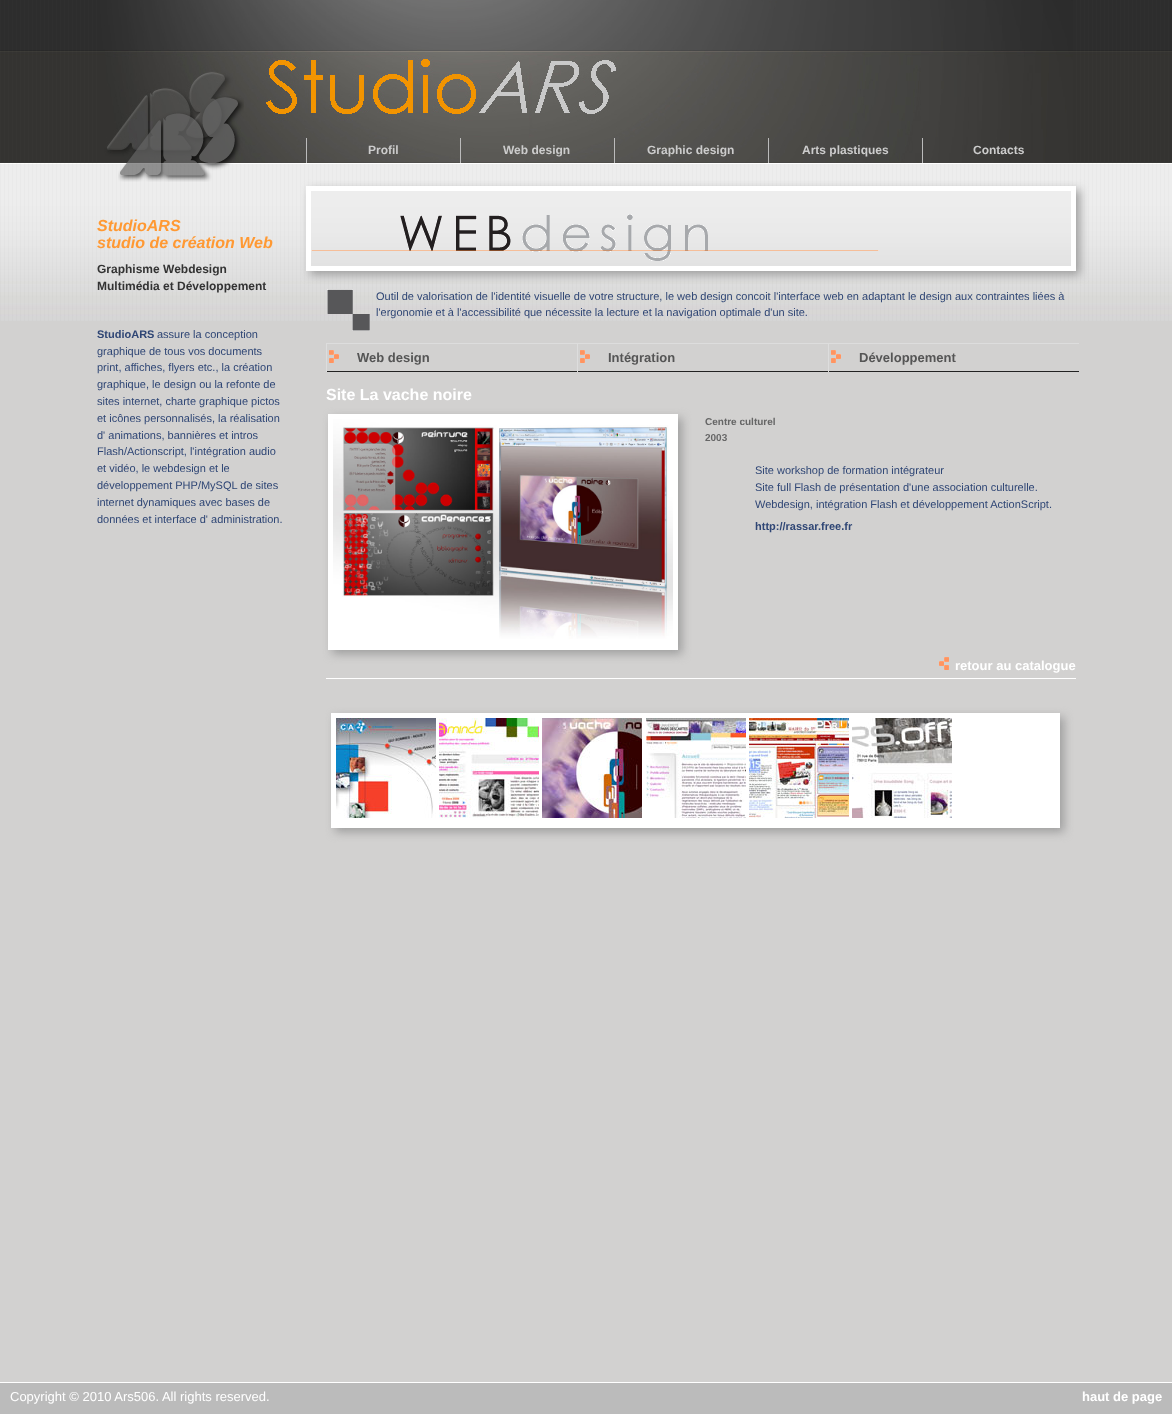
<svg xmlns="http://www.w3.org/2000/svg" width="1172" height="1414">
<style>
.a{font:bold 12px Liberation Sans;fill:#ccc}
.b{font:italic bold 16px Liberation Sans;fill:#f93}
.c{font:bold 12px Liberation Sans;fill:#333}
.d{font:bold 11px Liberation Sans;fill:#2f4675}
.e{font:11px Liberation Sans;fill:#2f4675}
.f{font:bold 13px Liberation Sans;fill:#555}
.g{font:bold 16px Liberation Sans;fill:#fff}
.h{font:bold 10px Liberation Sans;fill:#666}
.i{font:bold 13px Liberation Sans;fill:#fff}
.j{font:13px Liberation Sans;fill:#fff}
</style>
<rect width="100%" height="100%" fill="#d2d1d0"/>
<image href="1.png" x="0" y="0" width="1172" height="321"/>
<image href="2.png" x="100" y="0" width="973" height="164"/>
<image href="3.png" x="118" y="96" width="126" height="86"/>
<path fill="#bbb" d="M306 138h1v25H306z"/>
<path fill="#bbb" d="M460 138h1v25H460z"/>
<path fill="#bbb" d="M614 138h1v25H614z"/>
<path fill="#bbb" d="M768 138h1v25H768z"/>
<path fill="#bbb" d="M922 138h1v25H922z"/>
<path fill="#9e9e9e" filter="blur(5px)" d="M310 190h770v85H310z"/>
<image href="4.png" x="311" y="191" width="760" height="75"/>
<path fill="none" stroke="#fff" stroke-width="5" d="M308.5 188.5h765v80H308.5z"/>
<image href="5.png" x="311" y="214" width="568" height="47"/>
<image href="6.png" x="327" y="289" width="43" height="42"/>
<image href="7.png" x="329" y="350" width="10" height="13"/>
<path fill="#ddd" d="M326 343h753v1H326z"/>
<path fill="#222" d="M326 371h753v1H326z"/>
<path fill="#ddd" d="M326 343h1v29H326z"/>
<image href="7.png" x="580" y="350" width="10" height="13"/>
<path fill="#ddd" d="M577 343h1v29H577z"/>
<image href="7.png" x="831" y="350" width="10" height="13"/>
<path fill="#ddd" d="M828 343h1v29H828z"/>
<path fill="#9e9e9e" filter="blur(5px)" d="M332 418h350v236H332z"/>
<path fill="none" stroke="#fff" stroke-width="5" d="M330.5 416.5h345v231H330.5z"/>
<image href="8.png" x="333" y="419" width="340" height="226"/>
<path fill="#fff" d="M326 678h750v1H326z"/>
<image href="9.png" x="939" y="657" width="10" height="13"/>
<path fill="#9e9e9e" filter="blur(5px)" d="M335 717h729v115H335z"/>
<path fill="#fff" d="M331 713h729v115H331z"/>
<image href="10.png" x="336" y="718" width="100" height="100"/>
<image href="11.png" x="439" y="718" width="100" height="100"/>
<image href="12.png" x="542" y="718" width="100" height="100"/>
<image href="13.png" x="646" y="718" width="100" height="100"/>
<image href="14.png" x="749" y="718" width="100" height="100"/>
<image href="15.png" x="852" y="718" width="100" height="100"/>
<path fill="#bbb" d="M0 1383h1172v31H0z"/>
<path fill="#fff" d="M0 1382h1172v1H0z"/>
<text class="a" x="368" y="154">Profil</text>
<text class="a" x="503" y="154">Web design</text>
<text class="a" x="647" y="154">Graphic design</text>
<text class="a" x="802" y="154">Arts plastiques</text>
<text class="a" x="973" y="154">Contacts</text>
<text class="b" x="97" y="231">StudioARS</text>
<text class="b" x="97" y="248">studio de création Web</text>
<text class="c" x="97" y="273">Graphisme Webdesign</text>
<text class="c" x="97" y="290">Multimédia et Développement</text>
<text class="d" x="97" y="338">StudioARS</text>
<text class="e" x="157" y="338">assure la conception</text>
<text class="e" x="97" y="355">graphique de tous vos documents</text>
<text class="e" x="97" y="371">print, affiches, flyers etc., la création</text>
<text class="e" x="97" y="388">graphique, le design ou la refonte de</text>
<text class="e" x="97" y="405">sites internet, charte graphique pictos</text>
<text class="e" x="97" y="422">et icônes personnalisés, la réalisation</text>
<text class="e" x="97" y="439">d' animations, bannières et intros</text>
<text class="e" x="97" y="455">Flash/Actionscript, l'intégration audio</text>
<text class="e" x="97" y="472">et vidéo, le webdesign et le</text>
<text class="e" x="97" y="489">développement PHP/MySQL de sites</text>
<text class="e" x="97" y="506">internet dynamiques avec bases de</text>
<text class="e" x="97" y="523">données et interface d' administration.</text>
<text class="e" x="376" y="300">Outil de valorisation de l'identité visuelle de votre structure, le web design concoit l'interface web en adaptant le design aux contraintes liées à</text>
<text class="e" x="376" y="316">l'ergonomie et à l'accessibilité que nécessite la lecture et la navigation optimale d'un site.</text>
<text class="f" x="357" y="362">Web design</text>
<text class="f" x="608" y="362">Intégration</text>
<text class="f" x="859" y="362">Développement</text>
<text class="g" x="326" y="400">Site La vache noire</text>
<text class="h" x="705" y="425">Centre culturel</text>
<text class="h" x="705" y="441">2003</text>
<text class="e" x="755" y="474">Site workshop de formation intégrateur</text>
<text class="e" x="755" y="491">Site full Flash de présentation d'une association culturelle.</text>
<text class="e" x="755" y="508">Webdesign, intégration Flash et développement ActionScript.</text>
<text class="d" x="755" y="530">http://rassar.free.fr</text>
<text class="i" x="955" y="670">retour au catalogue</text>
<text class="j" x="10" y="1401">Copyright © 2010 Ars506. All rights reserved.</text>
<text class="i" x="1082" y="1401">haut de page</text>
</svg>
